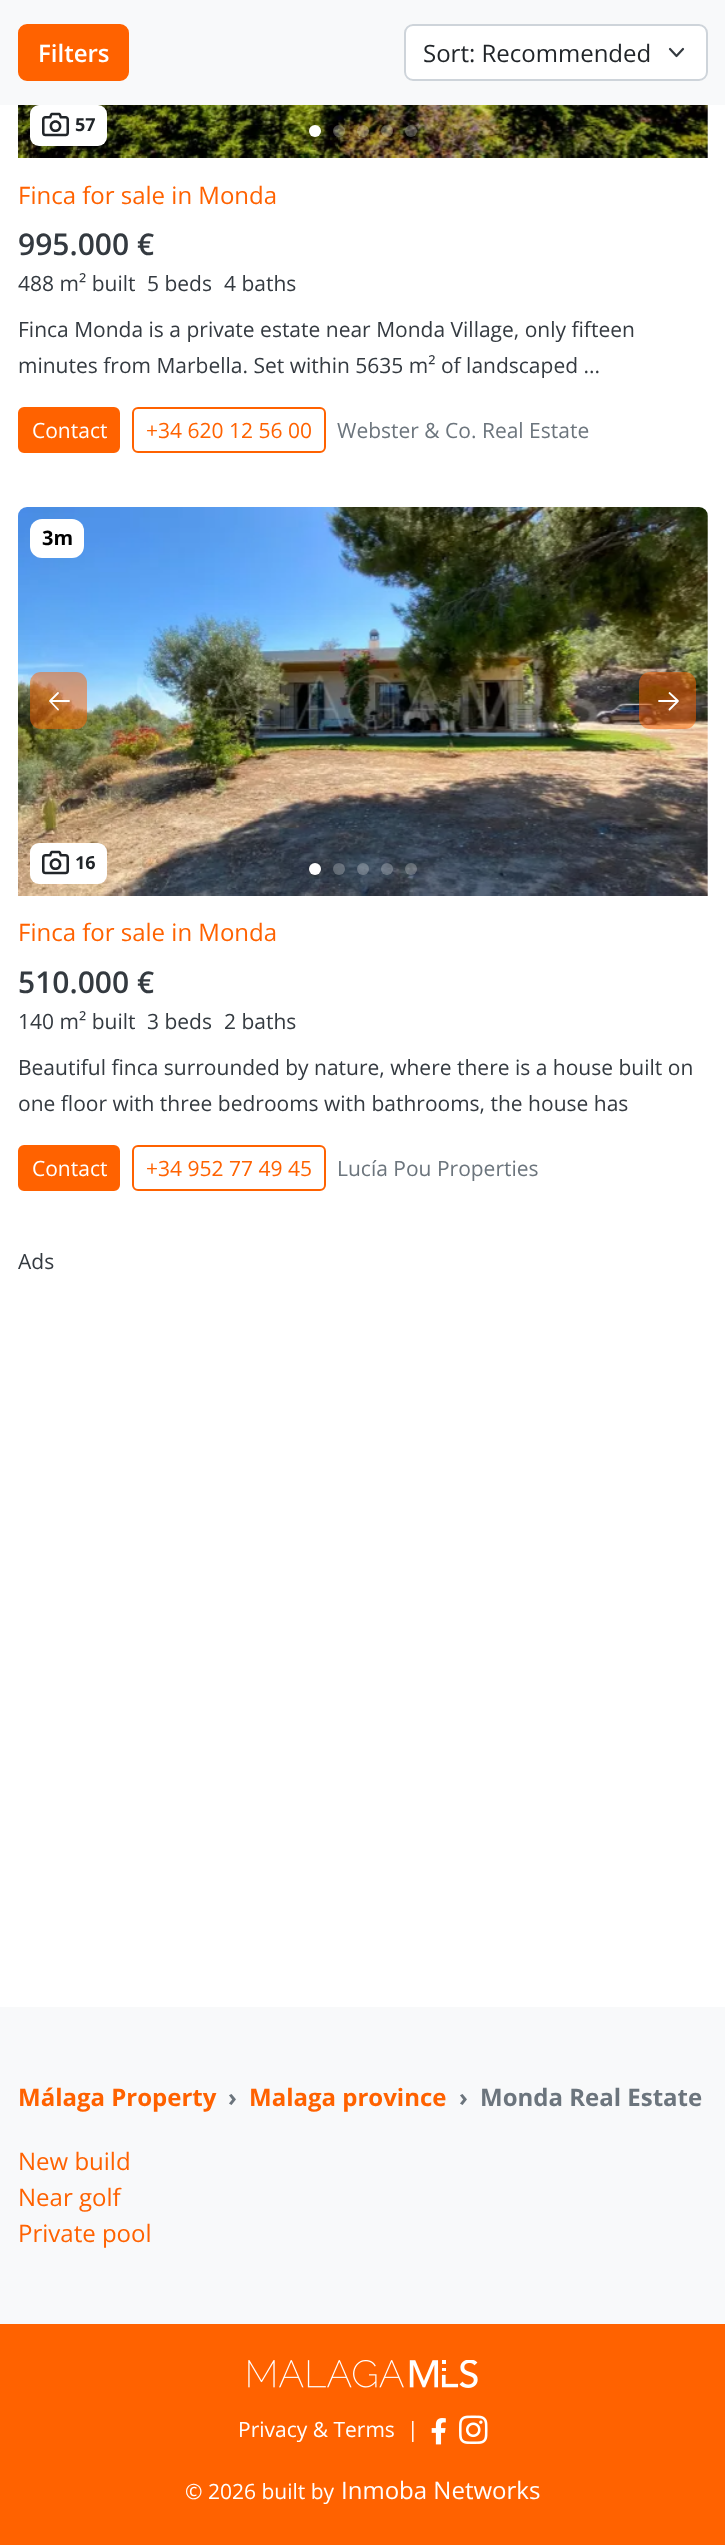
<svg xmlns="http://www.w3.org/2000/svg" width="725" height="2545">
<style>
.a{font:600 24px Open Sans;fill:#fff}
.b{font:24px Open Sans;fill:#212529}
.c{font:bold 18px Open Sans;fill:#212529}
.d{font:24px Open Sans;fill:#ff6200}
.e{font:600 30px Open Sans;fill:#343a40}
.f{font:21px Open Sans;fill:#343a40}
.g{font:21px Open Sans;fill:#fff}
.h{font:21px Open Sans;fill:#ff6200}
.i{font:21px Open Sans;fill:#6c757d}
.j{font:bold 20px Open Sans;fill:#000}
.k{font:bold 24px Open Sans;fill:#ff6200}
.l{font:bold 24px Open Sans;fill:#6c757d}
.m{font:24px Open Sans;fill:#fff}
</style>
<rect width="100%" height="100%" fill="#fff"/>
<path fill="#f8f9fa" d="M0 0h725v105H0z"/>
<rect fill="#ff6200" stroke="#ff6200" stroke-width="2" x="19" y="25" width="109" height="55" rx="8"/>
<rect fill="#fff" x="404" y="24" width="304" height="57" rx="9"/>
<path fill="none" stroke="#343a40" stroke-width="2.2" stroke-linecap="round" stroke-linejoin="round" d="M670 49l6.5 7l6.5-7"/>
<rect fill="none" stroke="#ced4da" stroke-width="2" x="405" y="25" width="302" height="55" rx="8"/>
<image href="1.png" x="18" y="105" width="690" height="53"/>
<circle fill="#fff" cx="315" cy="131" r="6"/>
<circle fill="#ffffff40" cx="339" cy="131" r="6"/>
<circle fill="#ffffff40" cx="363" cy="131" r="6"/>
<circle fill="#ffffff40" cx="387" cy="131" r="6"/>
<circle fill="#ffffff40" cx="411" cy="131" r="6"/>
<rect fill="#fff" x="30" y="105" width="77" height="41" rx="9"/>
<image href="2.png" x="42" y="112" width="27" height="25"/>
<rect fill="#ff6200" stroke="#ff6200" stroke-width="2" x="19" y="408" width="100" height="44" rx="5"/>
<rect fill="none" stroke="#ff6200" stroke-width="2" x="133" y="408" width="192" height="44" rx="5"/>
<image href="3.png" x="18" y="507" width="690" height="389"/>
<rect fill="#ff620080" x="30" y="672" width="57" height="57" rx="11"/>
<path fill="none" stroke="#fff" stroke-width="1.8" stroke-linecap="round" stroke-linejoin="bevel" d="M58 693l-8 8l8 8.5m-8-8.5h19"/>
<rect fill="#ff620080" x="639" y="672" width="57" height="57" rx="11"/>
<path fill="none" stroke="#fff" stroke-width="1.8" stroke-linecap="round" stroke-linejoin="bevel" d="M659 701h19m-8.5-8l8.5 8l-8.5 8.5"/>
<circle fill="#fff" cx="315" cy="869" r="6"/>
<circle fill="#ffffff40" cx="339" cy="869" r="6"/>
<circle fill="#ffffff40" cx="363" cy="869" r="6"/>
<circle fill="#ffffff40" cx="387" cy="869" r="6"/>
<circle fill="#ffffff40" cx="411" cy="869" r="6"/>
<rect fill="#fff" x="30" y="519" width="54" height="39" rx="12"/>
<rect fill="#fff" x="30" y="843" width="77" height="41" rx="9"/>
<image href="4.png" x="42" y="850" width="27" height="25"/>
<rect fill="#ff6200" stroke="#ff6200" stroke-width="2" x="19" y="1146" width="100" height="44" rx="5"/>
<rect fill="none" stroke="#ff6200" stroke-width="2" x="133" y="1146" width="192" height="44" rx="5"/>
<path fill="#f8f9fa" d="M0 2007h725v317H0z"/>
<path fill="#ff6200" d="M0 2324h725v221H0z"/>
<image href="5.png" x="248" y="2360" width="230" height="28"/>
<image href="6.png" x="431" y="2418" width="15" height="27"/>
<image href="7.png" x="459" y="2415" width="29" height="29"/>
<text class="a" x="38" y="62">Filters</text>
<text class="b" x="423" y="62">Sort: Recommended</text>
<text class="c" x="75" y="131">57</text>
<text class="d" x="18" y="204">Finca for sale in Monda</text>
<text class="e" x="18" y="255">995.000 €</text>
<text class="f" x="18" y="291">488 m² built</text>
<text class="f" x="147" y="291">5 beds</text>
<text class="f" x="224" y="291">4 baths</text>
<text class="f" x="18" y="337">Finca Monda is a private estate near Monda Village, only fifteen</text>
<text class="f" x="18" y="373">minutes from Marbella. Set within 5635 m² of landscaped ...</text>
<text class="g" x="32" y="438">Contact</text>
<text class="h" x="146" y="438">+34 620 12 56 00</text>
<text class="i" x="337" y="438">Webster &amp; Co. Real Estate</text>
<text class="j" x="42" y="545">3m</text>
<text class="c" x="75" y="869">16</text>
<text class="d" x="18" y="941">Finca for sale in Monda</text>
<text class="e" x="18" y="993">510.000 €</text>
<text class="f" x="18" y="1029">140 m² built</text>
<text class="f" x="147" y="1029">3 beds</text>
<text class="f" x="224" y="1029">2 baths</text>
<text class="f" x="18" y="1075">Beautiful finca surrounded by nature, where there is a house built on</text>
<text class="f" x="18" y="1111">one floor with three bedrooms with bathrooms, the house has</text>
<text class="g" x="32" y="1176">Contact</text>
<text class="h" x="146" y="1176">+34 952 77 49 45</text>
<text class="i" x="337" y="1176">Lucía Pou Properties</text>
<text class="f" x="18" y="1269">Ads</text>
<text class="k" x="18" y="2106">Málaga Property</text>
<text class="l" x="228" y="2106">›</text>
<text class="k" x="249" y="2106">Malaga province</text>
<text class="l" x="459" y="2106">›</text>
<text class="l" x="480" y="2106">Monda Real Estate</text>
<text class="d" x="18" y="2170">New build</text>
<text class="d" x="18" y="2206">Near golf</text>
<text class="d" x="18" y="2242">Private pool</text>
<text class="g" x="238" y="2437">Privacy &amp; Terms</text>
<text class="g" x="407" y="2437">|</text>
<text class="g" x="185" y="2499">© 2026 built by</text>
<text class="m" x="341" y="2499">Inmoba Networks</text>
</svg>
